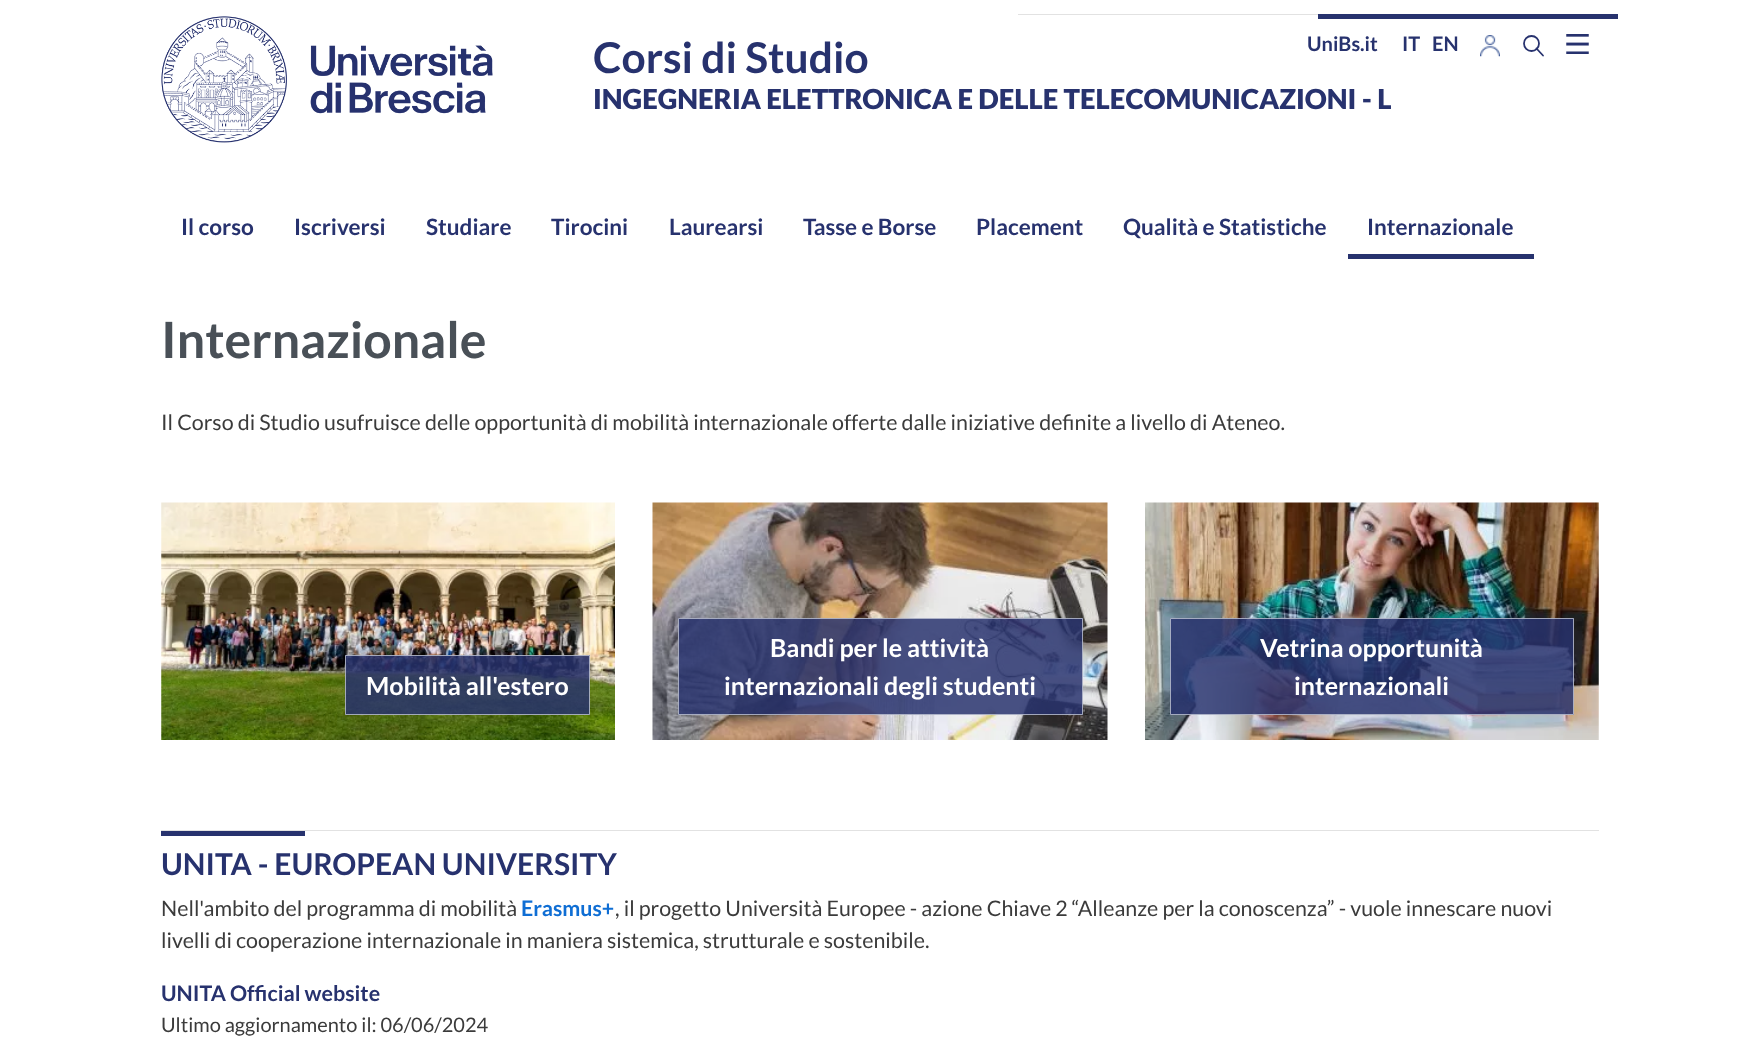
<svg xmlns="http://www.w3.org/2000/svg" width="1759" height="1048">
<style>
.a{font:bold 20px Lato;fill:#27326e}
.b{font:bold 42.5px Lato;fill:#27326e}
.c{font:900 27.5px Lato;fill:#27326e}
.d{font:bold 22.5px Lato;fill:#27326e}
.e{font:bold 50px Lato;fill:#495057}
.f{font:21.42px Lato;fill:#3b3b3b}
.g{font:bold 25px Lato;fill:#fff}
.h{font:bold 30px Lato;fill:#27326e}
.i{font:bold 21.42px Lato;fill:#0f6ed4}
.j{font:bold 21.42px Lato;fill:#27326e}
.k{font:20px Lato;fill:#3b3b3b}
</style>
<rect width="100%" height="100%" fill="#fff"/>
<path fill="#e2e2e2" d="M1018 14h300v1H1018z"/>
<path fill="#27326e" d="M1318 14h300v5H1318z"/>
<image href="1.png" x="1480" y="35" width="20" height="22"/>
<path fill="none" stroke="#27326e" stroke-width="1.8" stroke-linecap="round" stroke-linejoin="round" d="M1536.5 48.5l6.5 7"/>
<circle fill="none" stroke="#27326e" stroke-width="1.8" cx="1531.5" cy="43.5" r="7.5"/>
<image href="2.png" x="161" y="16" width="332" height="127"/>
<image href="3.png" x="1566" y="34" width="23" height="20"/>
<path fill="#27326e" d="M1348 254h186v5H1348z"/>
<image href="4.png" x="161" y="502" width="454" height="238"/>
<path fill="#27326ed6" d="M345 655h245v60H345z"/>
<path fill="none" stroke="#e9ecefa1" d="M345.5 655.5h244v59H345.5z"/>
<image href="5.png" x="652" y="502" width="456" height="238"/>
<path fill="#27326ed6" d="M678 618h405v97H678z"/>
<path fill="none" stroke="#e9ecefa1" d="M678.5 618.5h404v96H678.5z"/>
<image href="6.png" x="1145" y="502" width="454" height="238"/>
<path fill="#27326ed6" d="M1170 618h404v97H1170z"/>
<path fill="none" stroke="#e9ecefa1" d="M1170.5 618.5h403v96H1170.5z"/>
<path fill="#e2e2e2" d="M161 830h1438v1H161z"/>
<path fill="#27326e" d="M161 831h144v5H161z"/>
<text class="a" x="1307" y="51">UniBs.it</text>
<text class="a" x="1402" y="51">IT</text>
<text class="a" x="1432" y="51">EN</text>
<text class="b" x="593" y="73">Corsi di Studio</text>
<text class="c" x="593" y="109">INGEGNERIA ELETTRONICA E DELLE TELECOMUNICAZIONI - L</text>
<text class="d" x="181" y="235">Il corso</text>
<text class="d" x="294" y="235">Iscriversi</text>
<text class="d" x="426" y="235">Studiare</text>
<text class="d" x="551" y="235">Tirocini</text>
<text class="d" x="669" y="235">Laurearsi</text>
<text class="d" x="803" y="235">Tasse e Borse</text>
<text class="d" x="976" y="235">Placement</text>
<text class="d" x="1123" y="235">Qualità e Statistiche</text>
<text class="d" x="1367" y="235">Internazionale</text>
<text class="e" x="161" y="358">Internazionale</text>
<text class="f" x="161" y="430">Il Corso di Studio usufruisce delle opportunità di mobilità internazionale offerte dalle iniziative definite a livello di Ateneo.</text>
<text class="g" x="366" y="695">Mobilità all'estero</text>
<text class="g" x="770" y="657">Bandi per le attività</text>
<text class="g" x="724" y="695">internazionali degli studenti</text>
<text class="g" x="1260" y="657">Vetrina opportunità</text>
<text class="g" x="1294" y="695">internazionali</text>
<text class="h" x="161" y="875">UNITA - EUROPEAN UNIVERSITY</text>
<text class="f" x="161" y="916">Nell'ambito del programma di mobilità</text>
<text class="i" x="521" y="916">Erasmus+</text>
<text class="f" x="615" y="916">, il progetto Università Europee - azione Chiave 2 “Alleanze per la conoscenza” - vuole innescare nuovi</text>
<text class="f" x="161" y="948">livelli di cooperazione internazionale in maniera sistemica, strutturale e sostenibile.</text>
<text class="j" x="161" y="1001">UNITA Official website</text>
<text class="k" x="161" y="1032">Ultimo aggiornamento il: 06/06/2024</text>
</svg>
